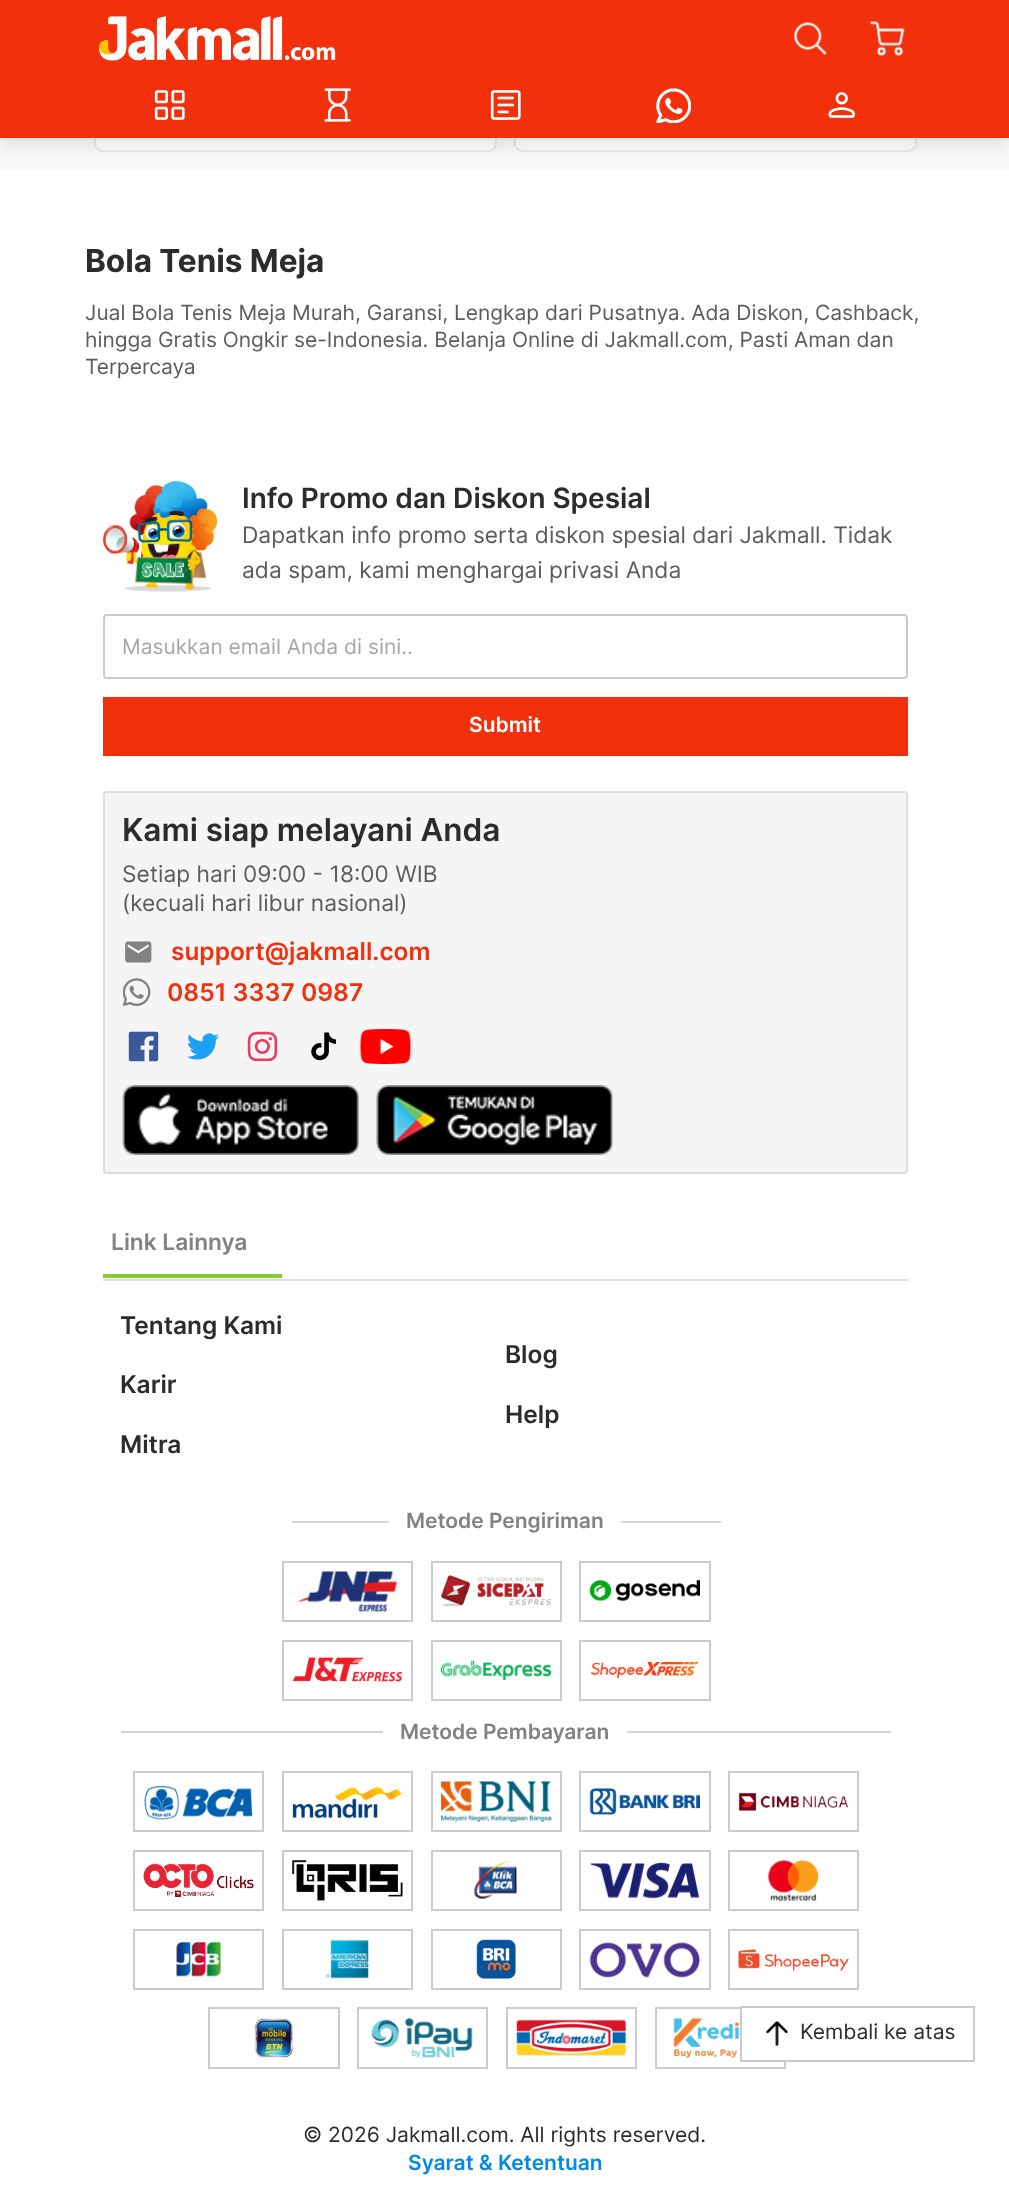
<svg xmlns="http://www.w3.org/2000/svg" width="1009" height="2210">
<style>
.a{font:bold 31.5px Inter;fill:#2c2b2e}
.b{font:21px Inter;fill:#5c5b5f}
.c{font:600 28px Inter;fill:#2c2b2e}
.d{font:22.75px Inter;fill:#5c5b5f}
.e{font:21px Inter;fill:#a7a7a8}
.f{font:600 21px Inter;fill:#fff}
.g{font:600 31.5px Inter;fill:#2c2b2e}
.h{font:600 24.5px Inter;fill:#f2300c}
.i{font:600 22.75px Inter;fill:#828184}
.j{font:600 24.5px Inter;fill:#2c2b2e}
.k{font:600 21px Inter;fill:#828184}
.l{font:21px Inter;fill:#2c2b2e}
.m{font:600 21px Inter;fill:#008ae6}
</style>
<defs>
<clipPath id="clip1"><path d="M121 1271h770v210H121z"/></clipPath>
</defs>
<rect width="100%" height="100%" fill="#fff"/>
<path fill="#fafafa" d="M0 138h1009v32H0z"/>
<path fill="#fff" d="M95 42h402v101c0 5-4 9-9 9h-384c-5 0-9-4-9-9z"/>
<path fill="#eaeaea" d="M497 42l-2 2v100c0 2-1 3-2 4l1 2c2-2 3-4 3-6z"/>
<path fill="#eaeaea" d="M494 150c-1 1-4 2-6 2h-385c-2 0-4-1-6-2l1-2l4 2h386c2 0 4-1 5-2z"/>
<path fill="#eaeaea" d="M96 44v100c0 2 1 3 2 4l-1 2l-3-4v-104z"/>
<path fill="#fff" d="M515 42h402v101c0 5-4 9-9 9h-384c-5 0-9-4-9-9z"/>
<path fill="#eaeaea" d="M917 42l-2 2v100c0 2-1 3-2 4l1 2c2-2 3-4 3-6z"/>
<path fill="#eaeaea" d="M914 150c-1 1-4 2-6 2h-385c-2 0-4-1-6-2l1-2l4 2h386c2 0 4-1 5-2z"/>
<path fill="#eaeaea" d="M516 44v100c0 2 1 3 2 4l-1 2l-3-4v-104z"/>
<path fill="#0000001a" filter="blur(9px)" d="M0 84h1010v63H0z"/>
<path fill="#f2300c" d="M0 0h1009v138H0z"/>
<image href="1.png" x="154" y="90" width="31" height="30"/>
<image href="2.png" x="324" y="88" width="27" height="34"/>
<image href="3.png" x="490" y="90" width="31" height="30"/>
<image href="4.png" x="656" y="88" width="35" height="35"/>
<image href="5.png" x="828" y="92" width="27" height="26"/>
<image href="6.png" x="98" y="16" width="238" height="45"/>
<image href="7.png" x="794" y="22" width="33" height="33"/>
<image href="8.png" x="870" y="21" width="35" height="35"/>
<image href="9.png" x="103" y="481" width="114" height="111"/>
<rect fill="none" stroke="#cbcbcb" stroke-width="2" x="104" y="615" width="803" height="63" rx="3"/>
<path fill="#f2300c" d="M103 697h805v59H103z"/>
<rect fill="#f5f5f5" stroke="#ddd" stroke-width="2" x="104" y="792" width="803" height="381" rx="3"/>
<image href="10.png" x="125" y="941" width="27" height="22"/>
<image href="11.png" x="123" y="978" width="28" height="28"/>
<image href="12.png" x="128" y="1031" width="31" height="31"/>
<image href="13.png" x="187" y="1033" width="32" height="27"/>
<image href="14.png" x="247" y="1031" width="31" height="31"/>
<image href="15.png" x="311" y="1032" width="25" height="29"/>
<image href="16.png" x="360" y="1029" width="52" height="35"/>
<image href="17.png" x="122" y="1085" width="237" height="70"/>
<image href="18.png" x="376" y="1085" width="237" height="70"/>
<path fill="#84cc33" d="M103 1274h179v4H103z"/>
<path fill="#ddd" d="M103 1279h805v2H103z"/>
<path fill="#d5d5d5" d="M292 1521h429v2H292z"/>
<path fill="#fff" d="M389 1521h232v2H389z"/>
<path fill="none" stroke="#cbcbcb" stroke-width="2" d="M283 1562h129v59H283z"/>
<image href="19.png" x="297" y="1571" width="101" height="41"/>
<path fill="none" stroke="#cbcbcb" stroke-width="2" d="M432 1562h129v59H432z"/>
<image href="20.png" x="441" y="1575" width="111" height="32"/>
<path fill="none" stroke="#cbcbcb" stroke-width="2" d="M580 1562h130v59H580z"/>
<image href="21.png" x="589" y="1580" width="111" height="22"/>
<path fill="none" stroke="#cbcbcb" stroke-width="2" d="M283 1641h129v59H283z"/>
<image href="22.png" x="292" y="1657" width="111" height="25"/>
<path fill="none" stroke="#cbcbcb" stroke-width="2" d="M432 1641h129v59H432z"/>
<image href="23.png" x="441" y="1660" width="111" height="20"/>
<path fill="none" stroke="#cbcbcb" stroke-width="2" d="M580 1641h130v59H580z"/>
<image href="24.png" x="590" y="1661" width="109" height="18"/>
<path fill="#d5d5d5" d="M121 1731h770v2H121z"/>
<path fill="#fff" d="M383 1731h244v2H383z"/>
<path fill="none" stroke="#cbcbcb" stroke-width="2" d="M134 1772h129v59H134z"/>
<image href="25.png" x="144" y="1785" width="109" height="35"/>
<path fill="none" stroke="#cbcbcb" stroke-width="2" d="M283 1772h129v59H283z"/>
<image href="26.png" x="292" y="1786" width="110" height="33"/>
<path fill="none" stroke="#cbcbcb" stroke-width="2" d="M432 1772h129v59H432z"/>
<image href="27.png" x="441" y="1781" width="111" height="41"/>
<path fill="none" stroke="#cbcbcb" stroke-width="2" d="M580 1772h130v59H580z"/>
<image href="28.png" x="589" y="1788" width="111" height="27"/>
<path fill="none" stroke="#cbcbcb" stroke-width="2" d="M729 1772h129v59H729z"/>
<image href="29.png" x="738" y="1792" width="110" height="20"/>
<path fill="none" stroke="#cbcbcb" stroke-width="2" d="M134 1851h129v59H134z"/>
<image href="30.png" x="143" y="1863" width="111" height="34"/>
<path fill="none" stroke="#cbcbcb" stroke-width="2" d="M283 1851h129v59H283z"/>
<image href="31.png" x="292" y="1860" width="111" height="41"/>
<path fill="none" stroke="#cbcbcb" stroke-width="2" d="M432 1851h129v59H432z"/>
<image href="32.png" x="474" y="1861" width="44" height="39"/>
<path fill="none" stroke="#cbcbcb" stroke-width="2" d="M580 1851h130v59H580z"/>
<image href="33.png" x="590" y="1862" width="110" height="37"/>
<path fill="none" stroke="#cbcbcb" stroke-width="2" d="M729 1851h129v59H729z"/>
<image href="34.png" x="768" y="1860" width="51" height="41"/>
<path fill="none" stroke="#cbcbcb" stroke-width="2" d="M134 1930h129v59H134z"/>
<image href="35.png" x="176" y="1942" width="46" height="35"/>
<path fill="none" stroke="#cbcbcb" stroke-width="2" d="M283 1930h129v59H283z"/>
<image href="36.png" x="325" y="1940" width="45" height="39"/>
<path fill="none" stroke="#cbcbcb" stroke-width="2" d="M432 1930h129v59H432z"/>
<image href="37.png" x="476" y="1939" width="40" height="40"/>
<path fill="none" stroke="#cbcbcb" stroke-width="2" d="M580 1930h130v59H580z"/>
<image href="38.png" x="589" y="1942" width="111" height="36"/>
<path fill="none" stroke="#cbcbcb" stroke-width="2" d="M729 1930h129v59H729z"/>
<image href="39.png" x="738" y="1949" width="111" height="22"/>
<path fill="none" stroke="#cbcbcb" stroke-width="2" d="M209 2008h130v60H209z"/>
<image href="40.png" x="254" y="2017" width="39" height="41"/>
<path fill="none" stroke="#cbcbcb" stroke-width="2" d="M358 2008h129v60H358z"/>
<image href="41.png" x="371" y="2017" width="102" height="41"/>
<path fill="none" stroke="#cbcbcb" stroke-width="2" d="M507 2008h129v60H507z"/>
<image href="42.png" x="516" y="2019" width="111" height="37"/>
<path fill="none" stroke="#cbcbcb" stroke-width="2" d="M656 2008h129v60H656z"/>
<image href="43.png" x="673" y="2017" width="67" height="41"/>
<path fill="#fff" d="M742 2008h44v52H742z"/>
<path fill="none" stroke="#cbcbcb" stroke-width="2" d="M741 2007h233v54H741z"/>
<image href="44.png" x="765" y="2021" width="24" height="25"/>
<text class="a" x="85" y="272">Bola Tenis Meja</text>
<text class="b" x="85" y="320">Jual Bola Tenis Meja Murah, Garansi, Lengkap dari Pusatnya. Ada Diskon, Cashback,</text>
<text class="b" x="85" y="347">hingga Gratis Ongkir se-Indonesia. Belanja Online di Jakmall.com, Pasti Aman dan</text>
<text class="b" x="85" y="374">Terpercaya</text>
<text class="c" x="242" y="508">Info Promo dan Diskon Spesial</text>
<text class="d" x="242" y="543">Dapatkan info promo serta diskon spesial dari Jakmall. Tidak</text>
<text class="d" x="242" y="578">ada spam, kami menghargai privasi Anda</text>
<text class="e" x="122" y="654">Masukkan email Anda di sini..</text>
<text class="f" x="469" y="732">Submit</text>
<text class="g" x="122" y="841">Kami siap melayani Anda</text>
<text class="d" x="122" y="882">Setiap hari 09:00 - 18:00 WIB</text>
<text class="d" x="122" y="911">(kecuali hari libur nasional)</text>
<text class="h" x="171" y="960">support@jakmall.com</text>
<text class="h" x="167" y="1001">0851 3337 0987</text>
<text class="i" x="111" y="1250">Link Lainnya</text>
<g clip-path="url(#clip1)">
<text class="j" x="120" y="1334">Tentang Kami</text>
</g>
<text class="j" x="505" y="1363">Blog</text>
<text class="j" x="120" y="1393">Karir</text>
<text class="j" x="505" y="1423">Help</text>
<text class="j" x="120" y="1453">Mitra</text>
<text class="k" x="406" y="1528">Metode Pengiriman</text>
<text class="k" x="400" y="1739">Metode Pembayaran</text>
<text class="l" x="303" y="2142">© 2026 Jakmall.com. All rights reserved.</text>
<text class="m" x="408" y="2170">Syarat &amp; Ketentuan</text>
<text class="l" x="800" y="2039">Kembali ke atas</text>
</svg>
